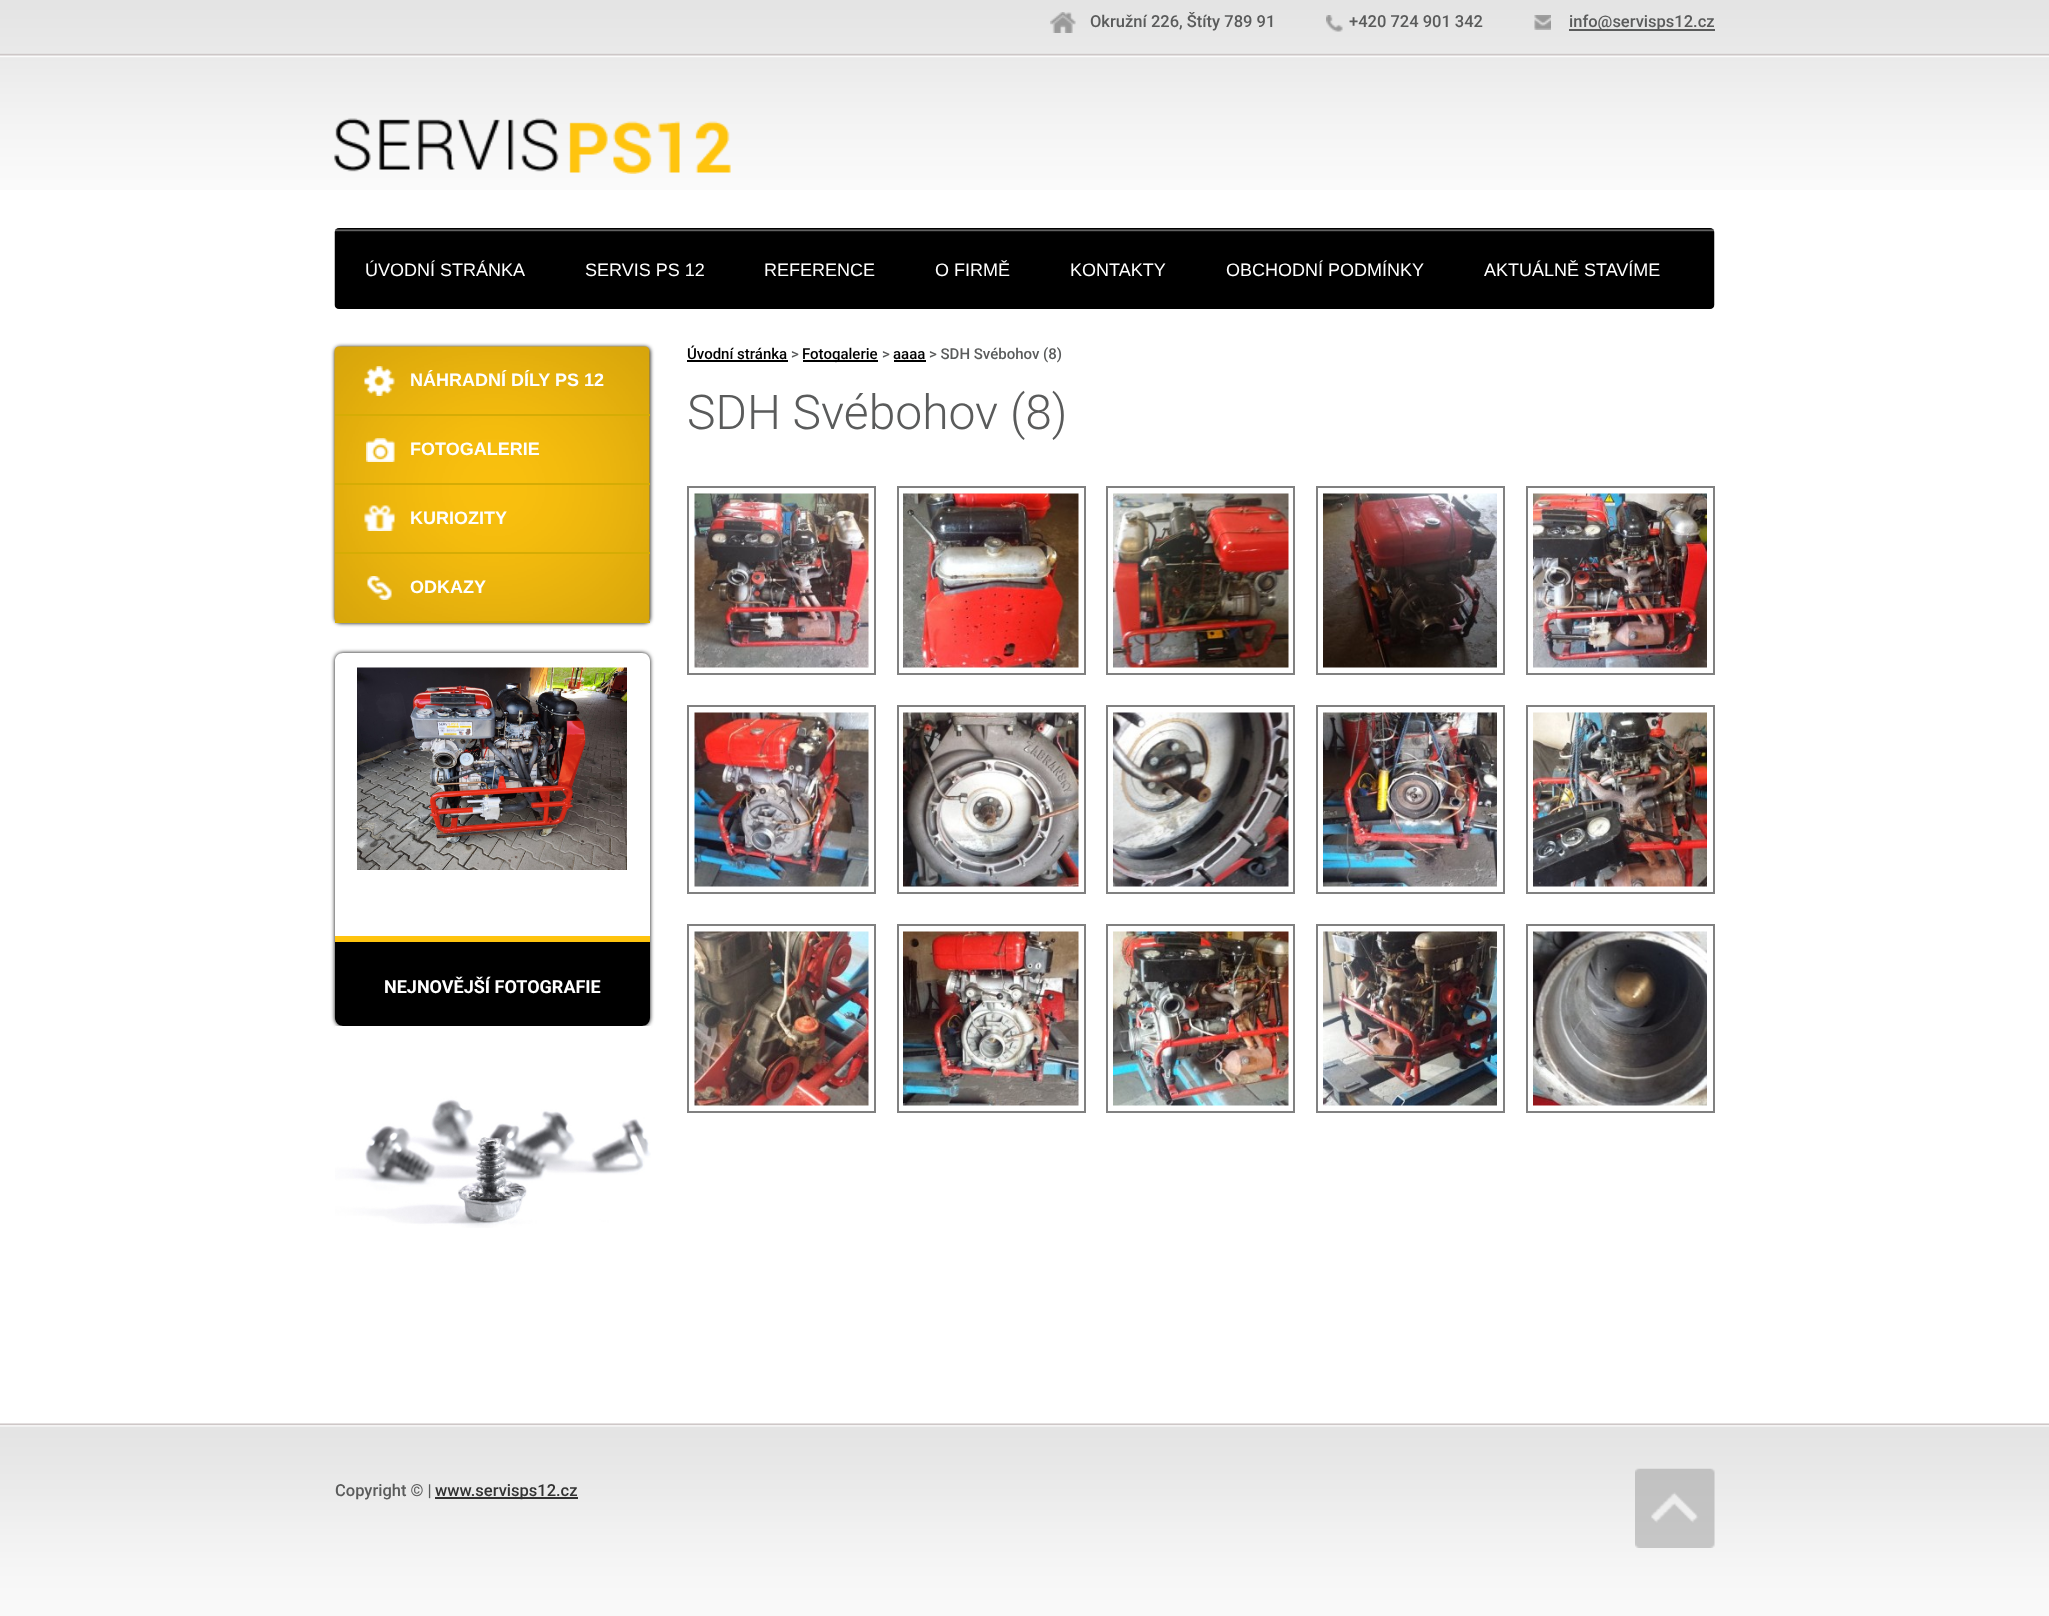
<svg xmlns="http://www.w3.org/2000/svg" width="2049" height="1616">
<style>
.a{font:500 16.5px Roboto;fill:#5a5b5b}
.b{font:18px Liberation Sans;fill:#fff}
.c{font:bold 18px Liberation Sans;fill:#fff}
.d{font:bold 18px Roboto;fill:#fff}
.e{font:500 15px Roboto;fill:#000}
.f{font:500 15px Roboto;fill:#5a5b5b}
.g{font:300 48px Roboto;fill:#5a5b5b}
.h{font:500 16.5px Roboto;fill:#333}
</style>
<defs>
<clipPath id="clip1"><path d="M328 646h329v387h-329zm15 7h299c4.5 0 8 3.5 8 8v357c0 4.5-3.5 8-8 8h-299c-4.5 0-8-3.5-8-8v-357c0-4.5 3.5-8 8-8z" clip-rule="evenodd"/></clipPath>
</defs>
<rect width="100%" height="100%" fill="#fff"/>
<image href="1.png" x="0" y="0" width="2049" height="190"/>
<image href="2.png" x="1050" y="12" width="26" height="21"/>
<image href="3.png" x="1326" y="15" width="17" height="17"/>
<image href="4.png" x="1534" y="15" width="17" height="15"/>
<path fill="#5a5b5b" d="M1569 29h146v2H1569z"/>
<image href="5.png" x="334" y="118" width="397" height="56"/>
<image href="6.png" x="334" y="228" width="1381" height="81"/>
<rect fill="#000" filter="blur(2px)" x="335" y="347" width="315" height="276" rx="5"/>
<image href="7.png" x="334" y="346" width="316" height="275"/>
<path fill="#d5ac05" d="M335 414h315v2H335z"/>
<image href="8.png" x="364" y="366" width="31" height="30"/>
<path fill="#d5ac05" d="M335 483h315v2H335z"/>
<image href="9.png" x="366" y="438" width="29" height="24"/>
<path fill="#d5ac05" d="M335 552h315v2H335z"/>
<image href="10.png" x="364" y="505" width="31" height="26"/>
<path fill="#d5ac05" d="M335 621h315v2H335z"/>
<image href="11.png" x="367" y="576" width="25" height="24"/>
<g clip-path="url(#clip1)">
<rect fill="#000" filter="blur(2px)" x="335" y="653" width="315" height="373" rx="8"/>
</g>
<image href="12.png" x="357" y="667" width="270" height="203"/>
<path fill="#000" d="M335 942h315v76c0 4.5-3.5 8-8 8h-299c-4.5 0-8-3.5-8-8z"/>
<path fill="#ffc40e" d="M335 936h315v6H335z"/>
<image href="13.png" x="335" y="1026" width="316" height="202"/>
<path fill="#000" d="M687 360h101v2H687z"/>
<path fill="#000" d="M803 360h75v2H803z"/>
<path fill="#000" d="M894 360h32v2H894z"/>
<path fill="none" stroke="#808080" stroke-width="2" d="M688 487h187v187H688z"/>
<image href="14.png" x="694" y="493" width="175" height="175"/>
<path fill="none" stroke="#808080" stroke-width="2" d="M898 487h187v187H898z"/>
<image href="15.png" x="903" y="493" width="176" height="175"/>
<path fill="none" stroke="#808080" stroke-width="2" d="M1107 487h187v187H1107z"/>
<image href="16.png" x="1113" y="493" width="176" height="175"/>
<path fill="none" stroke="#808080" stroke-width="2" d="M1317 487h187v187H1317z"/>
<image href="17.png" x="1323" y="493" width="174" height="175"/>
<path fill="none" stroke="#808080" stroke-width="2" d="M1527 487h187v187H1527z"/>
<image href="18.png" x="1533" y="493" width="174" height="175"/>
<path fill="none" stroke="#808080" stroke-width="2" d="M688 706h187v187H688z"/>
<image href="19.png" x="694" y="712" width="175" height="175"/>
<path fill="none" stroke="#808080" stroke-width="2" d="M898 706h187v187H898z"/>
<image href="20.png" x="903" y="712" width="176" height="175"/>
<path fill="none" stroke="#808080" stroke-width="2" d="M1107 706h187v187H1107z"/>
<image href="21.png" x="1113" y="712" width="176" height="175"/>
<path fill="none" stroke="#808080" stroke-width="2" d="M1317 706h187v187H1317z"/>
<image href="22.png" x="1323" y="712" width="174" height="175"/>
<path fill="none" stroke="#808080" stroke-width="2" d="M1527 706h187v187H1527z"/>
<image href="23.png" x="1533" y="712" width="174" height="175"/>
<path fill="none" stroke="#808080" stroke-width="2" d="M688 925h187v187H688z"/>
<image href="24.png" x="694" y="931" width="175" height="175"/>
<path fill="none" stroke="#808080" stroke-width="2" d="M898 925h187v187H898z"/>
<image href="25.png" x="903" y="931" width="176" height="175"/>
<path fill="none" stroke="#808080" stroke-width="2" d="M1107 925h187v187H1107z"/>
<image href="26.png" x="1113" y="931" width="176" height="175"/>
<path fill="none" stroke="#808080" stroke-width="2" d="M1317 925h187v187H1317z"/>
<image href="27.png" x="1323" y="931" width="174" height="175"/>
<path fill="none" stroke="#808080" stroke-width="2" d="M1527 925h187v187H1527z"/>
<image href="28.png" x="1533" y="931" width="174" height="175"/>
<image href="29.png" x="0" y="1423" width="2049" height="193"/>
<path fill="#333" d="M435 1497h143v2H435z"/>
<image href="30.png" x="1635" y="1468" width="80" height="80"/>
<text class="a" x="1090" y="27">Okružní 226, Štíty 789 91</text>
<text class="a" x="1349" y="27">+420 724 901 342</text>
<text class="a" x="1569" y="27">info@servisps12.cz</text>
<text class="b" x="365" y="276">ÚVODNÍ STRÁNKA</text>
<text class="b" x="585" y="276">SERVIS PS 12</text>
<text class="b" x="764" y="276">REFERENCE</text>
<text class="b" x="935" y="276">O FIRMĚ</text>
<text class="b" x="1070" y="276">KONTAKTY</text>
<text class="b" x="1226" y="276">OBCHODNÍ PODMÍNKY</text>
<text class="b" x="1484" y="276">AKTUÁLNĚ STAVÍME</text>
<text class="c" x="410" y="386">NÁHRADNÍ DÍLY PS 12</text>
<text class="c" x="410" y="455">FOTOGALERIE</text>
<text class="c" x="410" y="524">KURIOZITY</text>
<text class="c" x="410" y="593">ODKAZY</text>
<text class="d" x="384" y="993">NEJNOVĚJŠÍ FOTOGRAFIE</text>
<text class="e" x="687" y="359">Úvodní stránka</text>
<text class="f" x="791" y="359">&gt;</text>
<text class="e" x="802" y="359">Fotogalerie</text>
<text class="f" x="882" y="359">&gt;</text>
<text class="e" x="893" y="359">aaaa</text>
<text class="f" x="929" y="359">&gt; SDH Svébohov (8)</text>
<text class="g" x="687" y="429">SDH Svébohov (8)</text>
<text class="a" x="335" y="1496">Copyright © |</text>
<text class="h" x="435" y="1496">www.servisps12.cz</text>
</svg>
